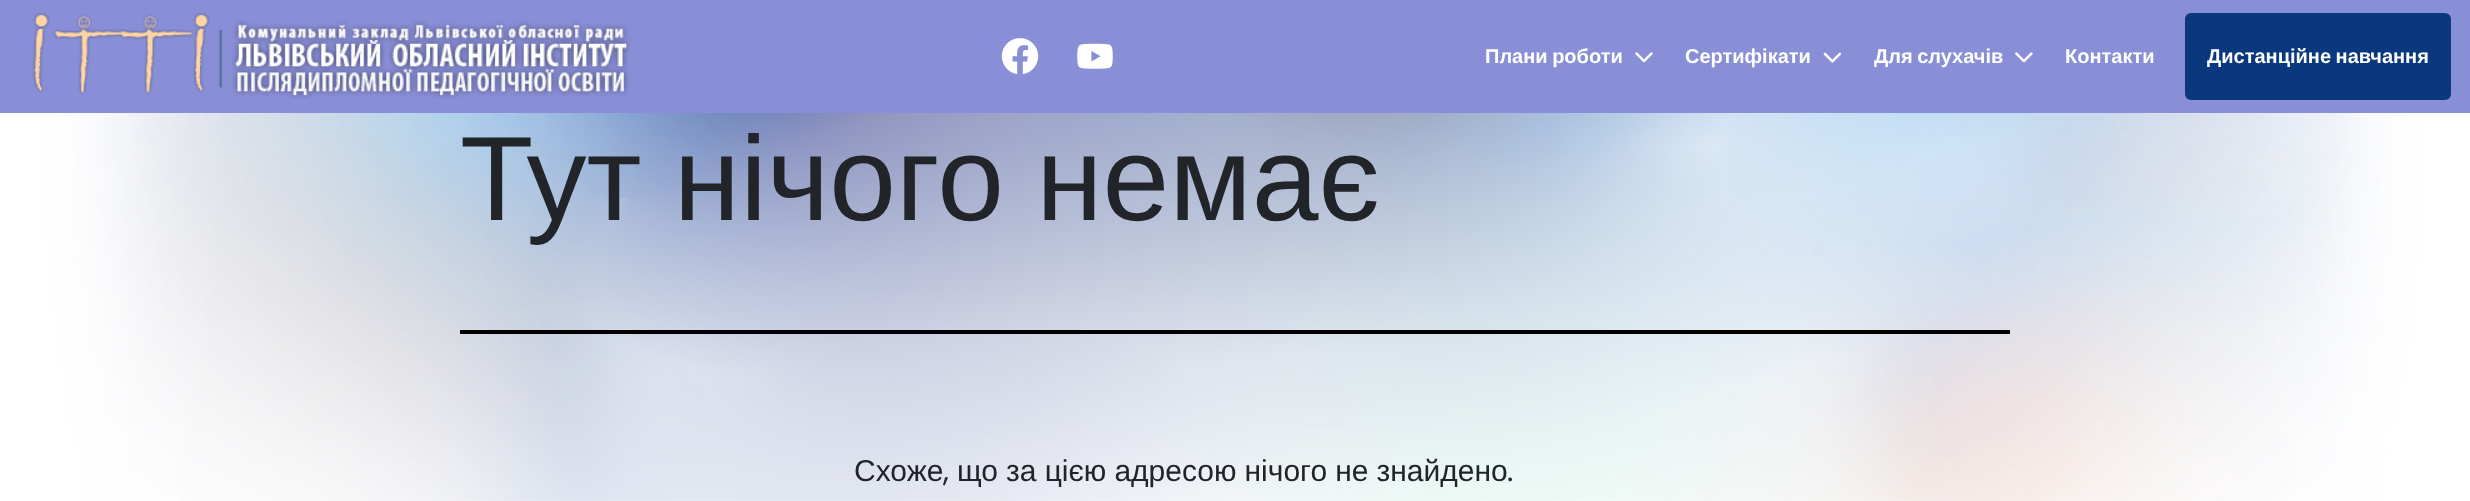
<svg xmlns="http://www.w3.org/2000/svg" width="2470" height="501">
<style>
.a{font:bold 20px Liberation Sans;fill:#fff}
.b{font:120px Liberation Sans;fill:#212529}
.c{font:30px Liberation Sans;fill:#212529}
.d{font:30px Poppins;fill:#212529}
</style>
<rect width="100%" height="100%" fill="#fff"/>
<image href="1.png" x="0" y="113" width="2470" height="388"/>
<path fill="#898fd7" d="M0 0h2470v113H0z"/>
<image href="2.png" x="32" y="12" width="598" height="87"/>
<image href="3.png" x="1001" y="38" width="38" height="37"/>
<image href="4.png" x="1077" y="43" width="36" height="26"/>
<image href="5.png" x="1635" y="52" width="18" height="11"/>
<image href="6.png" x="1823" y="52" width="19" height="11"/>
<image href="7.png" x="2015" y="52" width="18" height="11"/>
<rect fill="#09387e" x="2185" y="13" width="266" height="87" rx="6"/>
<path fill="#000" d="M460 330h1550v4H460z"/>
<text class="a" x="1485" y="63" word-spacing="-1">Плани роботи</text>
<text class="a" x="1685" y="63">Сертифікати</text>
<text class="a" x="1874" y="63" word-spacing="-1">Для слухачів</text>
<text class="a" x="2065" y="63">Контакти</text>
<text class="a" x="2207" y="63" word-spacing="-1">Дистанційне навчання</text>
<text class="b" x="460" y="220" word-spacing="-1">Тут нічого немає</text>
<text class="c" x="854" y="481">Схоже</text>
<text class="d" x="943" y="481">,</text>
<text class="c" x="957" y="481" word-spacing="-0.25">що за цією адресою нічого не знайдено</text>
<text class="d" x="1507" y="481">.</text>
</svg>
